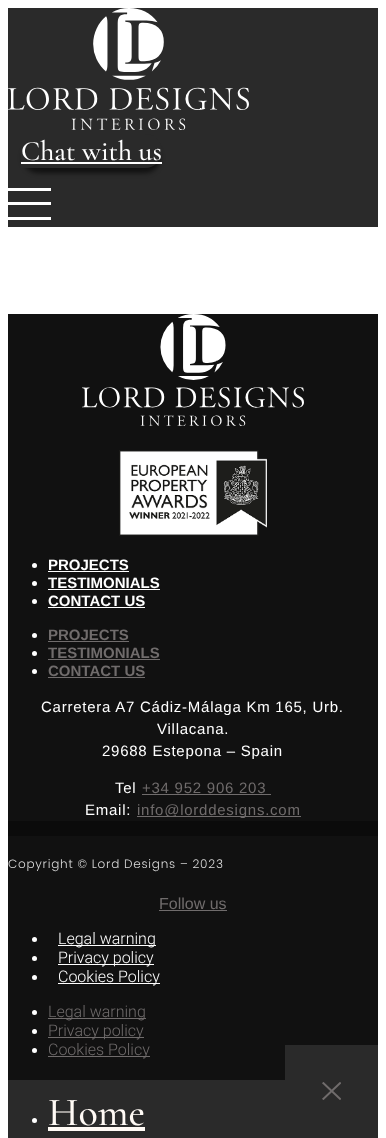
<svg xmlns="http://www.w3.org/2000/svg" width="386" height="1138">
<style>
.a{font:500 28px Cormorant Garamond;fill:#fff}
.b{font:bold 15px Liberation Sans;fill:#fff}
.c{font:bold 15px Liberation Sans;fill:#706c6c}
.d{font:15px Liberation Sans;letter-spacing:0.75px;fill:#fff}
.e{font:15px Liberation Sans;letter-spacing:0.75px;fill:#706c6c}
.f{font:300 12px Poppins;letter-spacing:0.75px;fill:#dadada}
.g{font:16px Liberation Sans;fill:#706c6c}
.h{font:300 16px Roboto;fill:#fff}
.i{font:300 16px Roboto;fill:#706c6c}
.j{font:500 40px Cormorant Garamond;fill:#fffaf5}
</style>
<rect width="100%" height="100%" fill="#fff"/>
<path fill="#2a2a2a" d="M8 8h370v219H8z"/>
<image href="1.png" x="8" y="8" width="241" height="122"/>
<rect fill="#00000099" filter="blur(2.5px)" x="23" y="143" width="137" height="30" rx="15"/>
<path fill="#2a2a2a" d="M21 134h124c9.5 0 17 7.5 17 17c0 9.5-7.5 17-17 17h-124z"/>
<path fill="#fff" d="M21 162h141v2H21z"/>
<path fill="#fff" d="M8 188h43v3H8z"/>
<path fill="#fff" d="M8 202h43v3H8z"/>
<path fill="#fff" d="M8 217h43v3H8z"/>
<path fill="#0b0b0b" d="M8 821h370v15H8z"/>
<path fill="#111" d="M8 314h370v507H8z"/>
<image href="2.png" x="82" y="314" width="222" height="112"/>
<image href="3.png" x="119" y="450" width="148" height="86"/>
<circle fill="#fff" cx="34.5" cy="565.5" r="2.5"/>
<path fill="#fff" d="M48 571h81v1H48z"/>
<circle fill="#fff" cx="34.5" cy="583.5" r="2.5"/>
<path fill="#fff" d="M48 589h112v1H48z"/>
<circle fill="#fff" cx="34.5" cy="601.5" r="2.5"/>
<path fill="#fff" d="M48 607h97v1H48z"/>
<circle fill="#fff" cx="34.5" cy="635.5" r="2.5"/>
<path fill="#706c6c" d="M48 641h81v1H48z"/>
<circle fill="#fff" cx="34.5" cy="653.5" r="2.5"/>
<path fill="#706c6c" d="M48 659h112v1H48z"/>
<circle fill="#fff" cx="34.5" cy="671.5" r="2.5"/>
<path fill="#706c6c" d="M48 677h97v1H48z"/>
<path fill="#706c6c" d="M142 794h129v1H142z"/>
<path fill="#706c6c" d="M137 816h164v1H137z"/>
<path fill="#111" d="M8 836h370v244H8z"/>
<path fill="#706c6c" d="M159 910h68v1H159z"/>
<circle fill="#fff" cx="34.5" cy="939.5" r="2.5"/>
<path fill="#fff" d="M58 945h98v1H58z"/>
<circle fill="#fff" cx="34.5" cy="958.5" r="2.5"/>
<path fill="#fff" d="M58 964h96v1H58z"/>
<circle fill="#fff" cx="34.5" cy="977.5" r="2.5"/>
<path fill="#fff" d="M58 983h102v1H58z"/>
<circle fill="#fff" cx="34.5" cy="1012.5" r="2.5"/>
<path fill="#706c6c" d="M48 1018h98v1H48z"/>
<circle fill="#fff" cx="34.5" cy="1031.5" r="2.5"/>
<path fill="#706c6c" d="M48 1037h96v1H48z"/>
<circle fill="#fff" cx="34.5" cy="1050.5" r="2.5"/>
<path fill="#706c6c" d="M48 1056h102v1H48z"/>
<path fill="#2a2a2a" d="M8 1080h277v58H8z"/>
<circle fill="#fff" cx="34.5" cy="1120.5" r="2.5"/>
<path fill="#fffaf5" d="M48 1127h97v4H48z"/>
<path fill="#2a2a2a" d="M285 1045h93v93H285z"/>
<image href="4.png" x="322" y="1082" width="19" height="18"/>
<text class="a" x="21" y="160">Chat with us</text>
<text class="b" x="48" y="570">PROJECTS</text>
<text class="b" x="48" y="588">TESTIMONIALS</text>
<text class="b" x="48" y="606">CONTACT US</text>
<text class="c" x="48" y="640">PROJECTS</text>
<text class="c" x="48" y="658">TESTIMONIALS</text>
<text class="c" x="48" y="676">CONTACT US</text>
<text class="d" x="41" y="712">Carretera A7 Cádiz-Málaga Km 165, Urb.</text>
<text class="d" x="157" y="734">Villacana.</text>
<text class="d" x="102" y="756">29688 Estepona – Spain</text>
<text class="d" x="115" y="793">Tel</text>
<text class="e" x="142" y="793">+34 952 906 203</text>
<text class="d" x="85" y="815">Email:</text>
<text class="e" x="137" y="815">info@lorddesigns.com</text>
<text class="f" x="8" y="868">Copyright © Lord Designs – 2023</text>
<text class="g" x="159" y="909">Follow us</text>
<text class="h" x="58" y="944">Legal warning</text>
<text class="h" x="58" y="963">Privacy policy</text>
<text class="h" x="58" y="982">Cookies Policy</text>
<text class="i" x="48" y="1017">Legal warning</text>
<text class="i" x="48" y="1036">Privacy policy</text>
<text class="i" x="48" y="1055">Cookies Policy</text>
<text class="j" x="48" y="1125">Home</text>
</svg>
